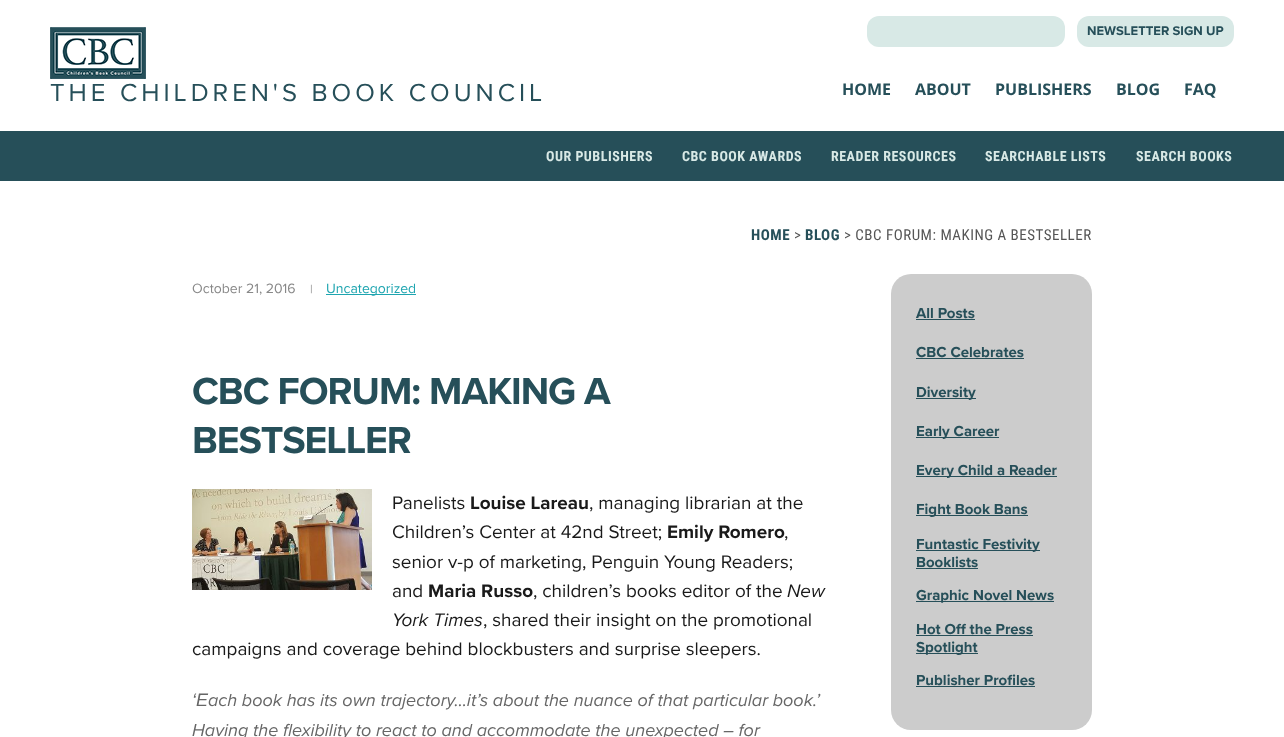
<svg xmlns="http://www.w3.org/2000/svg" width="1284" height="737">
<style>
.a{font:bold 13px Proxima Nova;fill:#264f59}
.b{font:25.6px Proxima Nova;letter-spacing:4px;fill:#264f59}
.c{font:bold 16px Open Sans;fill:#264f59}
.d{font:bold 14px Roboto Condensed;letter-spacing:0.5px;fill:#d8e9e6}
.e{font:bold 15px Roboto Condensed;letter-spacing:0.5px;fill:#264f59}
.f{font:15px Roboto Condensed;letter-spacing:0.5px;fill:#555}
.g{font:14px Proxima Nova;fill:#888}
.h{font:12px Proxima Nova;fill:#888}
.i{font:14px Proxima Nova;fill:#1ea5b0}
.j{font:bold 39px Proxima Nova;letter-spacing:-1px;fill:#264f59}
.k{font:18.9px Proxima Nova;fill:#1a1a1a}
.l{font:bold 18.9px Proxima Nova;fill:#1a1a1a}
.m{font:italic 18.9px Proxima Nova;fill:#1a1a1a}
.n{font:italic 18px Liberation Sans;fill:#666}
.o{font:italic 18px Proxima Nova;fill:#666}
.p{font:bold 15px Proxima Nova;fill:#264f59}
</style>
<rect width="100%" height="100%" fill="#fff"/>
<rect fill="#d8e9e6" x="867" y="16" width="198" height="31" rx="12"/>
<rect fill="#d8e9e6" x="1077" y="16" width="157" height="31" rx="12"/>
<image href="1.png" x="50" y="27" width="96" height="52"/>
<path fill="#264f59" d="M0 131h1284v50H0z"/>
<path fill="#1ea5b0" d="M326 294h90v1H326z"/>
<image href="2.png" x="192" y="489" width="180" height="101"/>
<rect fill="#ccc" x="891" y="274" width="201" height="456" rx="20"/>
<path fill="#264f59" d="M916 319h59v1H916z"/>
<path fill="#264f59" d="M916 358h108v1H916z"/>
<path fill="#264f59" d="M916 398h60v1H916z"/>
<path fill="#264f59" d="M916 437h83v1H916z"/>
<path fill="#264f59" d="M916 476h141v1H916z"/>
<path fill="#264f59" d="M916 515h112v1H916z"/>
<path fill="#264f59" d="M916 550h124v1H916z"/>
<path fill="#264f59" d="M916 568h62v1H916z"/>
<path fill="#264f59" d="M916 601h138v1H916z"/>
<path fill="#264f59" d="M916 635h117v1H916z"/>
<path fill="#264f59" d="M916 653h62v1H916z"/>
<path fill="#264f59" d="M916 686h119v1H916z"/>
<text class="a" x="1087" y="35">NEWSLETTER SIGN UP</text>
<text class="b" x="50" y="101">THE CHILDREN'S BOOK COUNCIL</text>
<text class="c" x="842" y="95">HOME</text>
<text class="c" x="915" y="95">ABOUT</text>
<text class="c" x="995" y="95">PUBLISHERS</text>
<text class="c" x="1116" y="95">BLOG</text>
<text class="c" x="1184" y="95">FAQ</text>
<text class="d" x="546" y="161">OUR PUBLISHERS</text>
<text class="d" x="682" y="161">CBC BOOK AWARDS</text>
<text class="d" x="831" y="161">READER RESOURCES</text>
<text class="d" x="985" y="161">SEARCHABLE LISTS</text>
<text class="d" x="1136" y="161">SEARCH BOOKS</text>
<text class="e" x="751" y="240">HOME</text>
<text class="f" x="794" y="240">&gt;</text>
<text class="e" x="805" y="240">BLOG</text>
<text class="f" x="844" y="240">&gt; CBC FORUM: MAKING A BESTSELLER</text>
<text class="g" x="192" y="293">October 21, 2016</text>
<text class="h" x="310" y="293">|</text>
<text class="i" x="326" y="293">Uncategorized</text>
<text class="j" x="192" y="404">CBC FORUM: MAKING A</text>
<text class="j" x="192" y="453">BESTSELLER</text>
<text class="k" x="392" y="509">Panelists</text>
<text class="l" x="470" y="509">Louise Lareau</text>
<text class="k" x="589" y="509">, managing librarian at the</text>
<text class="k" x="392" y="538">Children’s Center at 42nd Street;</text>
<text class="l" x="667" y="538">Emily Romero</text>
<text class="k" x="784" y="538">,</text>
<text class="k" x="392" y="568">senior v-p of marketing, Penguin Young Readers;</text>
<text class="k" x="392" y="597">and</text>
<text class="l" x="428" y="597">Maria Russo</text>
<text class="k" x="533" y="597">, children’s books editor of the</text>
<text class="m" x="787" y="597">New</text>
<text class="m" x="392" y="626">York Times</text>
<text class="k" x="483" y="626">, shared their insight on the promotional</text>
<text class="k" x="192" y="655">campaigns and coverage behind blockbusters and surprise sleepers.</text>
<text class="n" x="192" y="706">‘E</text>
<text class="o" x="208" y="706">ach book has its own trajectory…it’s about the nuance of that particular book.’</text>
<text class="o" x="192" y="736">Having the flexibility to react to and accommodate the unexpected – for</text>
<text class="p" x="916" y="318">All Posts</text>
<text class="p" x="916" y="357">CBC Celebrates</text>
<text class="p" x="916" y="397">Diversity</text>
<text class="p" x="916" y="436">Early Career</text>
<text class="p" x="916" y="475">Every Child a Reader</text>
<text class="p" x="916" y="514">Fight Book Bans</text>
<text class="p" x="916" y="549">Funtastic Festivity</text>
<text class="p" x="916" y="567">Booklists</text>
<text class="p" x="916" y="600">Graphic Novel News</text>
<text class="p" x="916" y="634">Hot Off the Press</text>
<text class="p" x="916" y="652">Spotlight</text>
<text class="p" x="916" y="685">Publisher Profiles</text>
</svg>
